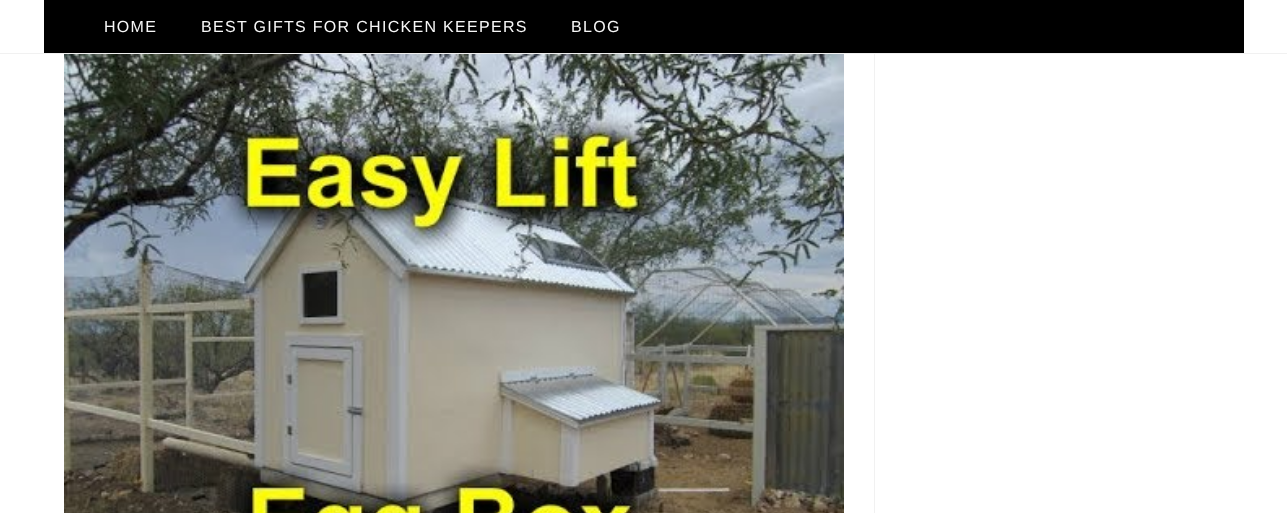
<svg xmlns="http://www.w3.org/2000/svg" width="1287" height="513">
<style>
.a{font:16px Liberation Sans;letter-spacing:1.3px;fill:#f7f7f7}
</style>
<rect width="100%" height="100%" fill="#fff"/>
<path fill="#f1f1f1" d="M0 53h1287v1H0z"/>
<path fill="#000" d="M44 0h1200v53H44z"/>
<path fill="#f1f1f1" d="M874 54h1v459H874z"/>
<image href="1.png" x="64" y="54" width="780" height="459"/>
<text class="a" x="104" y="32">HOME</text>
<text class="a" x="201" y="32">BEST GIFTS FOR CHICKEN KEEPERS</text>
<text class="a" x="571" y="32">BLOG</text>
</svg>
